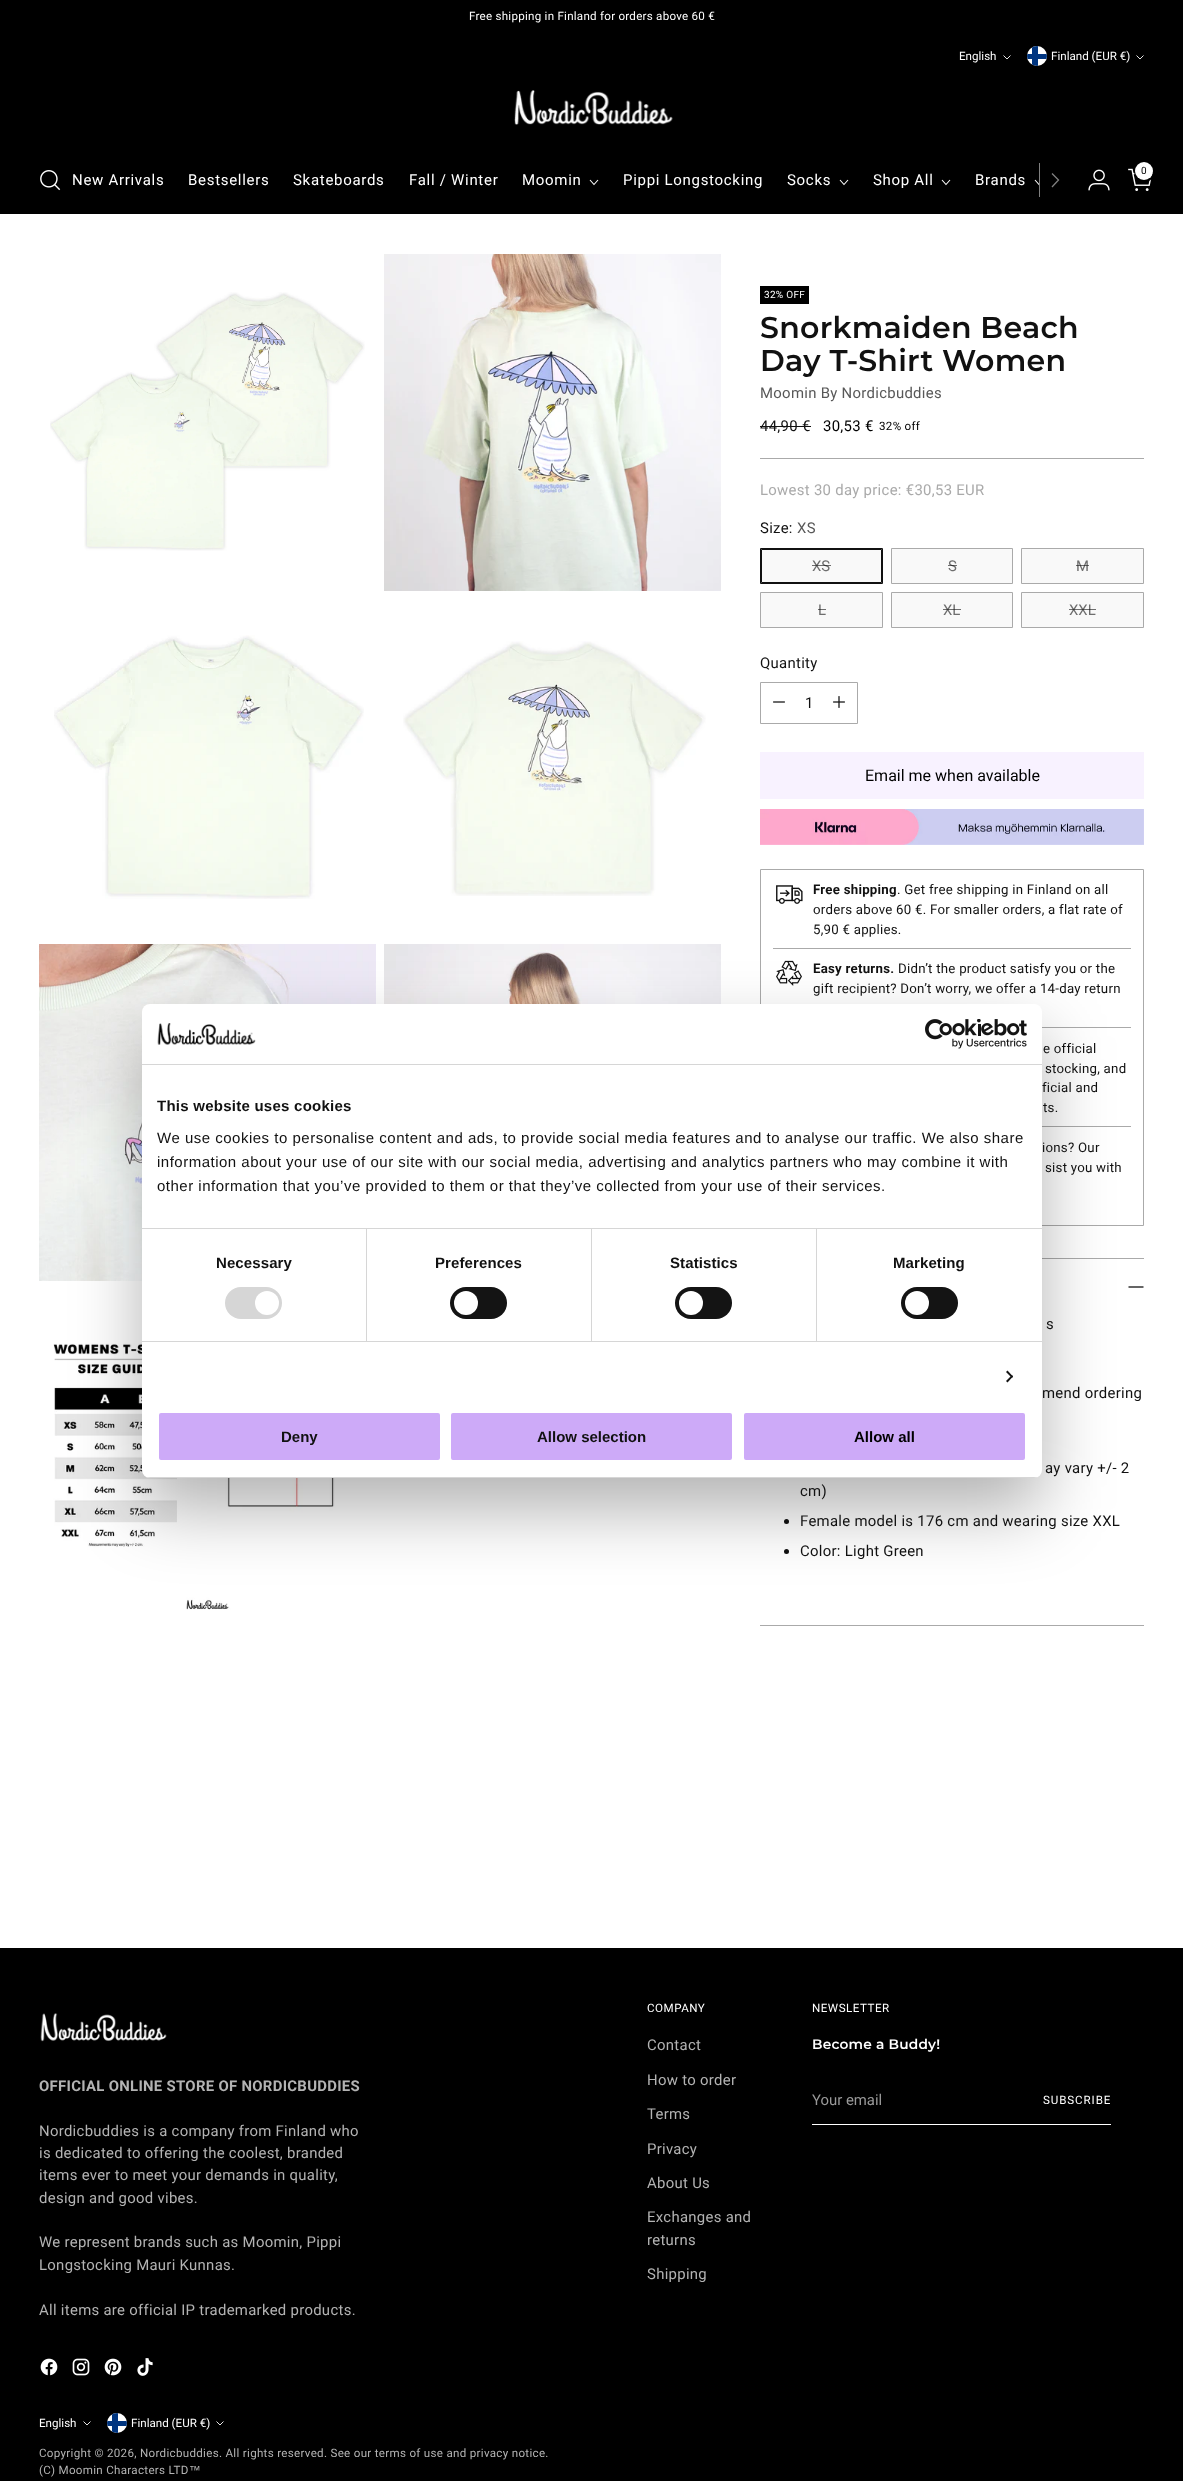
<svg xmlns="http://www.w3.org/2000/svg" width="1183" height="2481">
<style>
.a{font:11.6px Roboto;letter-spacing:0.25px;fill:#fff}
.b{font:11.6px Roboto;fill:#fff}
.c{font:15px Roboto;letter-spacing:0.7px;fill:#fff}
.d{font:10px Roboto;letter-spacing:0.3px;fill:#000}
.e{font:10px Roboto;letter-spacing:0.3px;fill:#fff}
.f{font:600 30px Montserrat;letter-spacing:0.3px;fill:#111}
.g{font:14.9px Roboto;letter-spacing:0.3px;fill:#585858}
.h{font:14.9px Roboto;letter-spacing:0.3px;fill:#111}
.i{font:14.9px Roboto;letter-spacing:0.3px;fill:#000}
.j{font:11.6px Roboto;letter-spacing:0.3px;fill:#000}
.k{font:14.9px Roboto;letter-spacing:0.3px;fill:#aaa}
.l{font:14.9px Roboto;fill:#6e6e6e}
.m{font:14.9px Roboto;fill:#111}
.n{font:16px Roboto;fill:#000}
.o{font:bold 13.25px Roboto;letter-spacing:0.25px;fill:#111}
.p{font:13.25px Roboto;letter-spacing:0.25px;fill:#111}
.q{font:11.6px Roboto;letter-spacing:0.5px;fill:#fff}
.r{font:14.9px Roboto;letter-spacing:0.3px;fill:#b3b3b3}
.s{font:600 13.75px Montserrat;letter-spacing:0.2px;fill:#fff}
.t{font:14.9px Roboto;fill:#999}
.u{font:11.6px Roboto;letter-spacing:0.9px;fill:#fff}
.v{font:bold 14.9px Roboto;letter-spacing:0.3px;fill:#b3b3b3}
.w{font:11.6px Roboto;letter-spacing:0.3px;fill:#b3b3b3}
.x{font:11.6px Liberation Sans;letter-spacing:0.3px;fill:#b3b3b3}
.y{font:bold 15px Liberation Sans;letter-spacing:0.25px;fill:#111}
.z{font:15px Liberation Sans;letter-spacing:0.5px;fill:#111}
.a1{font:bold 15px Liberation Sans;letter-spacing:0.1px;fill:#111}
.b1{font:bold 15px Liberation Sans;fill:#111}
.c1{font:bold 15px Liberation Sans;fill:#000}
</style>
<defs>
<clipPath id="clip1"><rect x="1027" y="46" width="20" height="20" rx="10"/></clipPath>
<clipPath id="clip2"><path d="M1034 177h5v10H1034z"/></clipPath>
<clipPath id="clip3"><rect x="107" y="2413" width="20" height="20" rx="10"/></clipPath>
<clipPath id="clip4"><rect x="142" y="1004" width="900" height="474" rx="8"/></clipPath>
</defs>
<rect width="100%" height="100%" fill="#fff"/>
<path fill="#000" d="M0 0h1183v214H0z"/>
<path fill="none" stroke="#fff" stroke-width="0.9" d="M1003.5 55.5l3.5 3.5l3.5-3.5"/>
<circle fill="#fff" cx="1037" cy="56" r="10"/>
<g clip-path="url(#clip1)">
<path fill="#003580" d="M1027 54h20v5H1027z"/>
<path fill="#003580" d="M1032 46h6v20H1032z"/>
</g>
<path fill="none" stroke="#fff" stroke-width="0.9" d="M1136.5 55.5l3.5 3.5l3.5-3.5"/>
<image href="1.png" x="514" y="90" width="159" height="35"/>
<image href="2.png" x="40" y="170" width="21" height="21"/>
<path fill="none" stroke="#fff" stroke-width="1.1" d="M590 180l4 4.5l4-4.5"/>
<path fill="none" stroke="#fff" stroke-width="1.1" d="M840 180l4 4.5l4-4.5"/>
<path fill="none" stroke="#fff" stroke-width="1.1" d="M942 180l4 4.5l4-4.5"/>
<g clip-path="url(#clip2)">
<path fill="none" stroke="#fff" stroke-width="1.1" d="M1035 180l4 4.5l4-4.5"/>
</g>
<path fill="#808080" d="M1039 163h1v34H1039z"/>
<path fill="none" stroke="#808080" stroke-width="1.3" d="M1052 187l6.5-7l-6.5-6.5"/>
<image href="3.png" x="1088" y="169" width="22" height="22"/>
<image href="4.png" x="1128" y="168" width="25" height="23"/>
<circle fill="none" stroke="#000" stroke-width="2" cx="1144.5" cy="171.5" r="9.5"/>
<circle fill="#fff" cx="1144" cy="171" r="9"/>
<image href="5.png" x="50" y="292" width="315" height="259"/>
<image href="6.png" x="384" y="254" width="337" height="337"/>
<image href="7.png" x="54" y="635" width="310" height="264"/>
<image href="8.png" x="403" y="641" width="303" height="255"/>
<image href="9.png" x="39" y="944" width="337" height="337"/>
<image href="10.png" x="384" y="944" width="337" height="60"/>
<image href="11.png" x="53" y="1343" width="309" height="267"/>
<path fill="#aaa" d="M760 458h384v1H760z"/>
<path fill="#000" d="M760 286h49v18H760z"/>
<path fill="#111" d="M760 426h51v1H760z"/>
<path fill="#f9f9f9" stroke="#111" d="M761.5 549.5h120v33H761.5z"/>
<path fill="none" stroke="#111" d="M760.5 548.5h122v35H760.5z"/>
<path fill="#f9f9f9" stroke="#aaa" d="M891.5 548.5h121v35H891.5z"/>
<path fill="#f9f9f9" stroke="#aaa" d="M1021.5 548.5h122v35H1021.5z"/>
<path fill="#f9f9f9" stroke="#aaa" d="M760.5 592.5h122v35H760.5z"/>
<path fill="#f9f9f9" stroke="#aaa" d="M891.5 592.5h121v35H891.5z"/>
<path fill="#f9f9f9" stroke="#aaa" d="M1021.5 592.5h122v35H1021.5z"/>
<path fill="none" stroke="#aaa" d="M760.5 682.5h97v41H760.5z"/>
<image href="12.png" x="773" y="701" width="12" height="2"/>
<image href="13.png" x="833" y="696" width="12" height="12"/>
<path fill="#f8f2ff" d="M760 752h384v47H760z"/>
<image href="14.png" x="760" y="809" width="384" height="36"/>
<path fill="none" stroke="#aaa" d="M760.5 869.5h383v356H760.5z"/>
<image href="15.png" x="776" y="885" width="27" height="19"/>
<path fill="#aaa" d="M773 948h358v1H773z"/>
<image href="16.png" x="776" y="960" width="26" height="26"/>
<path fill="#aaa" d="M1042 1027h89v1H1042z"/>
<path fill="#aaa" d="M1042 1126h89v1H1042z"/>
<path fill="#aaa" d="M1042 1258h102v1H1042z"/>
<path fill="#aaa" d="M760 1625h384v1H760z"/>
<path fill="none" stroke="#111" stroke-width="1.3" d="M1128.5 1287h15"/>
<circle fill="#111" cx="786.5" cy="1521.5" r="2.5"/>
<circle fill="#111" cx="786.5" cy="1551.5" r="2.5"/>
<path fill="#000" d="M0 1948h1183v533H0z"/>
<path fill="#fff" d="M812 2124h299v1H812z"/>
<image href="17.png" x="40" y="2013" width="127" height="29"/>
<image href="18.png" x="40" y="2358" width="18" height="18"/>
<image href="19.png" x="72" y="2358" width="18" height="18"/>
<image href="20.png" x="104" y="2358" width="18" height="18"/>
<image href="21.png" x="137" y="2358" width="16" height="18"/>
<path fill="none" stroke="#fff" stroke-width="0.9" d="M83.5 2421.5l3.5 3.5l3.5-3.5"/>
<circle fill="#fff" cx="117" cy="2423" r="10"/>
<g clip-path="url(#clip3)">
<path fill="#003580" d="M107 2421h20v5H107z"/>
<path fill="#003580" d="M112 2413h6v20H112z"/>
</g>
<path fill="none" stroke="#fff" stroke-width="0.9" d="M216.5 2421.5l3.5 3.5l3.5-3.5"/>
<rect fill="#0000004d" filter="blur(34px)" x="142" y="1036" width="900" height="474" rx="8"/>
<text class="a" x="469" y="20">Free shipping in Finland for orders above 60 €</text>
<text class="b" x="959" y="60">English</text>
<text class="b" x="1051" y="60">Finland (EUR €)</text>
<text class="c" x="72" y="185">New Arrivals</text>
<text class="c" x="188" y="185">Bestsellers</text>
<text class="c" x="293" y="185">Skateboards</text>
<text class="c" x="409" y="185">Fall / Winter</text>
<text class="c" x="522" y="185">Moomin</text>
<text class="c" x="623" y="185">Pippi Longstocking</text>
<text class="c" x="787" y="185">Socks</text>
<text class="c" x="873" y="185">Shop All</text>
<text class="c" x="975" y="185">Brands</text>
<text class="d" x="1141" y="174">0</text>
<text class="e" x="764" y="298">32% OFF</text>
<text class="f" x="760" y="338">Snorkmaiden Beach</text>
<text class="f" x="760" y="371">Day T-Shirt Women</text>
<text class="g" x="760" y="398">Moomin By Nordicbuddies</text>
<text class="h" x="760" y="431">44,90 €</text>
<text class="i" x="823" y="431">30,53 €</text>
<text class="j" x="879" y="430">32% off</text>
<text class="k" x="760" y="495">Lowest 30 day price: €30,53 EUR</text>
<text class="h" x="760" y="533">Size:</text>
<text class="g" x="797" y="533">XS</text>
<text class="l" x="812" y="571">XS</text>
<path fill="#11111199" d="M812 565h19v1H812z"/>
<text class="l" x="948" y="571">S</text>
<path fill="#11111199" d="M948 565h9v1H948z"/>
<text class="l" x="1076" y="571">M</text>
<path fill="#11111199" d="M1076 565h13v1H1076z"/>
<text class="l" x="818" y="615">L</text>
<path fill="#11111199" d="M818 609h8v1H818z"/>
<text class="l" x="943" y="615">XL</text>
<path fill="#11111199" d="M943 609h18v1H943z"/>
<text class="l" x="1069" y="615">XXL</text>
<path fill="#11111199" d="M1069 609h27v1H1069z"/>
<text class="h" x="760" y="668">Quantity</text>
<text class="m" x="805" y="708">1</text>
<text class="n" x="865" y="781">Email me when available</text>
<text class="o" x="813" y="894">Free shipping</text>
<text class="p" x="897" y="894">. Get free shipping in Finland on all</text>
<text class="p" x="813" y="914">orders above 60 €. For smaller orders, a flat rate of</text>
<text class="p" x="813" y="934">5,90 € applies.</text>
<text class="o" x="813" y="973">Easy returns.</text>
<text class="p" x="898" y="973">Didn’t the product satisfy you or the</text>
<text class="p" x="813" y="993">gift recipient? Don’t worry, we offer a 14-day return</text>
<text class="p" x="1043" y="1053">e official</text>
<text class="p" x="1045" y="1073">stocking, and</text>
<text class="p" x="1042" y="1092">ficial and</text>
<text class="p" x="1043" y="1112">ts.</text>
<text class="p" x="1042" y="1152">ions? Our</text>
<text class="p" x="1045" y="1172">sist you with</text>
<text class="h" x="1046" y="1329">s</text>
<text class="h" x="1042" y="1398">mend ordering</text>
<text class="h" x="1045" y="1473">ay vary +/- 2</text>
<text class="h" x="800" y="1496">cm)</text>
<text class="h" x="800" y="1526">Female model is 176 cm and wearing size XXL</text>
<text class="h" x="800" y="1556">Color: Light Green</text>
<text class="q" x="647" y="2012">COMPANY</text>
<text class="r" x="647" y="2050">Contact</text>
<text class="r" x="647" y="2085">How to order</text>
<text class="r" x="647" y="2119">Terms</text>
<text class="r" x="647" y="2154">Privacy</text>
<text class="r" x="647" y="2188">About Us</text>
<text class="r" x="647" y="2222">Exchanges and</text>
<text class="r" x="647" y="2245">returns</text>
<text class="r" x="647" y="2279">Shipping</text>
<text class="q" x="812" y="2012">NEWSLETTER</text>
<text class="s" x="812" y="2049">Become a Buddy!</text>
<text class="t" x="812" y="2105">Your email</text>
<text class="u" x="1043" y="2104">SUBSCRIBE</text>
<text class="v" x="39" y="2091">OFFICIAL ONLINE STORE OF NORDICBUDDIES</text>
<text class="r" x="39" y="2136">Nordicbuddies is a company from Finland who</text>
<text class="r" x="39" y="2158">is dedicated to offering the coolest, branded</text>
<text class="r" x="39" y="2180">items ever to meet your demands in quality,</text>
<text class="r" x="39" y="2203">design and good vibes.</text>
<text class="r" x="39" y="2247">We represent brands such as Moomin, Pippi</text>
<text class="r" x="39" y="2270">Longstocking Mauri Kunnas.</text>
<text class="r" x="39" y="2315">All items are official IP trademarked products.</text>
<text class="b" x="39" y="2427">English</text>
<text class="b" x="131" y="2427">Finland (EUR €)</text>
<text class="w" x="39" y="2457">Copyright © 2026, Nordicbuddies. All rights reserved. See our terms of use and privacy notice.</text>
<text class="w" x="39" y="2474">(C) Moomin Characters LTD</text>
<text class="x" x="189" y="2474">™</text>
<rect fill="#fff" x="142" y="1004" width="900" height="474" rx="8"/>
<path fill="#d6d6d6" d="M142 1064h900v1H142z"/>
<image href="22.png" x="157" y="1023" width="99" height="22"/>
<image href="23.png" x="925" y="1019" width="102" height="30"/>
<path fill="#d6d6d6" d="M142 1228h900v1H142z"/>
<text class="y" x="157" y="1111">This website uses cookies</text>
<text class="z" x="157" y="1143">We use cookies to personalise content and ads, to provide social media features and to analyse our traffic. We also share</text>
<text class="z" x="157" y="1167">information about your use of our site with our social media, advertising and analytics partners who may combine it with</text>
<text class="z" x="157" y="1191">other information that you’ve provided to them or that they’ve collected from your use of their services.</text>
<path fill="#d6d6d6" d="M142 1341h900v1H142z"/>
<path fill="#d6d6d6" d="M366 1229h1v112H366z"/>
<text class="a1" x="216" y="1268">Necessary</text>
<rect fill="#d6d6d6" x="225" y="1287" width="57" height="32" rx="16"/>
<circle fill="#fff" cx="267" cy="1303" r="12"/>
<path fill="#d6d6d6" d="M591 1229h1v112H591z"/>
<text class="a1" x="435" y="1268">Preferences</text>
<rect fill="#141414" x="450" y="1287" width="57" height="32" rx="16"/>
<circle fill="#fff" cx="466" cy="1303" r="12"/>
<path fill="#d6d6d6" d="M816 1229h1v112H816z"/>
<text class="a1" x="670" y="1268">Statistics</text>
<rect fill="#141414" x="675" y="1287" width="57" height="32" rx="16"/>
<circle fill="#fff" cx="691" cy="1303" r="12"/>
<text class="a1" x="893" y="1268">Marketing</text>
<rect fill="#141414" x="901" y="1287" width="57" height="32" rx="16"/>
<circle fill="#fff" cx="917" cy="1303" r="12"/>
<path fill="#141414" d="M1007.5 1370.5l5.5 6l-1 1.5l-6-6z"/>
<path fill="#141414" d="M1012 1375l1 1.5l-5.5 6l-1.5-1.5z"/>
<g clip-path="url(#clip4)">
<path fill="#d6d6d6" d="M142 1477h900v1H142z"/>
</g>
<rect fill="#cdaaf8" stroke="#fff" stroke-width="2" x="158" y="1412" width="283" height="49" rx="3"/>
<text class="b1" x="281" y="1442">Deny</text>
<rect fill="#cdaaf8" stroke="#fff" stroke-width="2" x="450" y="1412" width="283" height="49" rx="3"/>
<text class="b1" x="537" y="1442">Allow selection</text>
<rect fill="#cdaaf8" stroke="#fff" stroke-width="2" x="743" y="1412" width="283" height="49" rx="3"/>
<text class="c1" x="854" y="1442">Allow all</text>
</svg>
